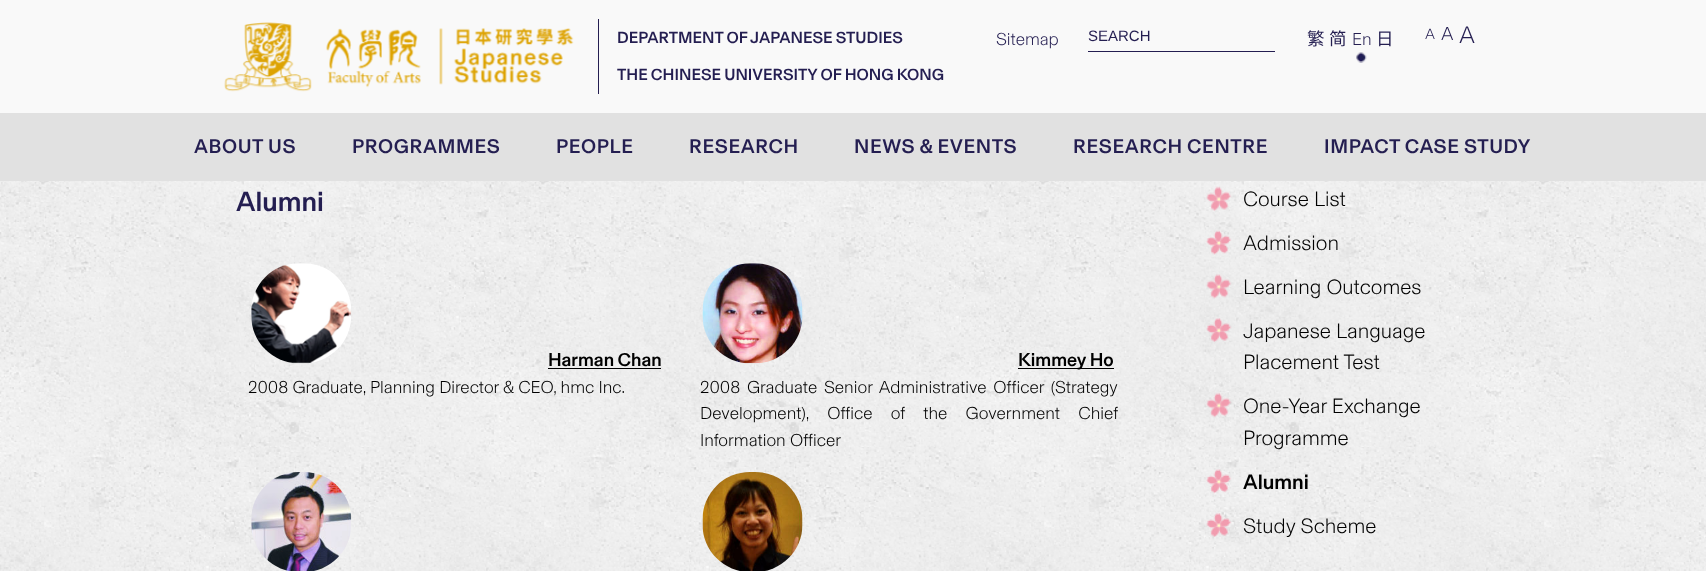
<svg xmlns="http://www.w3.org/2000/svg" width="1706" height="571">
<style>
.a{font:500 16.25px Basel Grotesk;fill:#241e51}
.b{font:300 17.5px Basel Grotesk;fill:#241e51}
.c{font:15px Liberation Sans;fill:#241e51}
.d{font:17.5px Noto Sans TC;fill:#241e51}
.e{font:17.5px Noto Sans SC;fill:#241e51}
.f{font:300 15px Basel Grotesk;fill:#241e51}
.g{font:300 18.75px Basel Grotesk;fill:#241e51}
.h{font:300 24px Basel Grotesk;fill:#241e51}
.i{font:500 20px Basel Grotesk;letter-spacing:0.6px;fill:#241e51}
.j{font:500 28px Basel Grotesk;fill:#241e51}
.k{font:500 18.75px Basel Grotesk;fill:#000}
.l{font:300 17.5px Basel Grotesk;fill:#000}
.m{font:300 21px Basel Grotesk;fill:#000}
.n{font:500 21px Basel Grotesk;fill:#000}
</style>
<rect width="100%" height="100%" fill="#fff"/>
<path fill="#f9f9f9" d="M0 0h1706v113H0z"/>
<image href="1.png" x="224" y="22" width="197" height="70"/>
<image href="2.png" x="439" y="28" width="135" height="57"/>
<path fill="#241e51" d="M598 19h1v75H598z"/>
<path fill="#241e51" d="M1088 51h187v1H1088z"/>
<image href="3.png" x="1356" y="52" width="11" height="11"/>
<path fill="#e1e1e1" d="M0 113h1706v68H0z"/>
<image href="4.png" x="0" y="181" width="1706" height="390"/>
<image href="5.png" x="251" y="263" width="101" height="101"/>
<path fill="#000" d="M548 368h113v1H548z"/>
<image href="6.png" x="702" y="263" width="101" height="101"/>
<path fill="#000" d="M1018 368h96v1H1018z"/>
<image href="7.png" x="251" y="472" width="101" height="99"/>
<image href="8.png" x="702" y="472" width="101" height="99"/>
<image href="9.png" x="1206" y="186" width="26" height="25"/>
<image href="10.png" x="1206" y="230" width="26" height="25"/>
<image href="11.png" x="1206" y="274" width="26" height="25"/>
<image href="12.png" x="1206" y="318" width="26" height="24"/>
<image href="13.png" x="1206" y="392" width="26" height="26"/>
<image href="14.png" x="1206" y="469" width="26" height="25"/>
<image href="15.png" x="1206" y="513" width="26" height="24"/>
<text class="a" x="617" y="43">DEPARTMENT OF JAPANESE STUDIES</text>
<text class="a" x="617" y="80">THE CHINESE UNIVERSITY OF HONG KONG</text>
<text class="b" x="996" y="45">Sitemap</text>
<text class="c" x="1088" y="41">SEARCH</text>
<text class="d" x="1307" y="45">繁</text>
<text class="e" x="1329" y="45">简</text>
<text class="b" x="1352" y="45">En</text>
<text class="d" x="1376" y="45">日</text>
<text class="f" x="1425" y="39">A</text>
<text class="g" x="1441" y="40">A</text>
<text class="h" x="1459" y="43">A</text>
<text class="i" x="194" y="153">ABOUT US</text>
<text class="i" x="352" y="153">PROGRAMMES</text>
<text class="i" x="556" y="153">PEOPLE</text>
<text class="i" x="689" y="153">RESEARCH</text>
<text class="i" x="854" y="153">NEWS &amp; EVENTS</text>
<text class="i" x="1073" y="153">RESEARCH CENTRE</text>
<text class="i" x="1324" y="153">IMPACT CASE STUDY</text>
<text class="j" x="236" y="211">Alumni</text>
<text class="k" x="548" y="366">Harman Chan</text>
<text class="l" x="248" y="393">2008 Graduate, Planning Director &amp; CEO, hmc Inc.</text>
<text class="k" x="1018" y="366">Kimmey Ho</text>
<text class="l" x="700" y="393" word-spacing="2.5">2008 Graduate Senior Administrative Officer (Strategy</text>
<text class="l" x="700" y="419" word-spacing="14">Development), Office of the Government Chief</text>
<text class="l" x="700" y="446">Information Officer</text>
<text class="m" x="1243" y="206">Course List</text>
<text class="m" x="1243" y="250">Admission</text>
<text class="m" x="1243" y="294">Learning Outcomes</text>
<text class="m" x="1243" y="338">Japanese Language</text>
<text class="m" x="1243" y="369">Placement Test</text>
<text class="m" x="1243" y="413">One-Year Exchange</text>
<text class="m" x="1243" y="445">Programme</text>
<text class="n" x="1243" y="489">Alumni</text>
<text class="m" x="1243" y="533">Study Scheme</text>
</svg>
